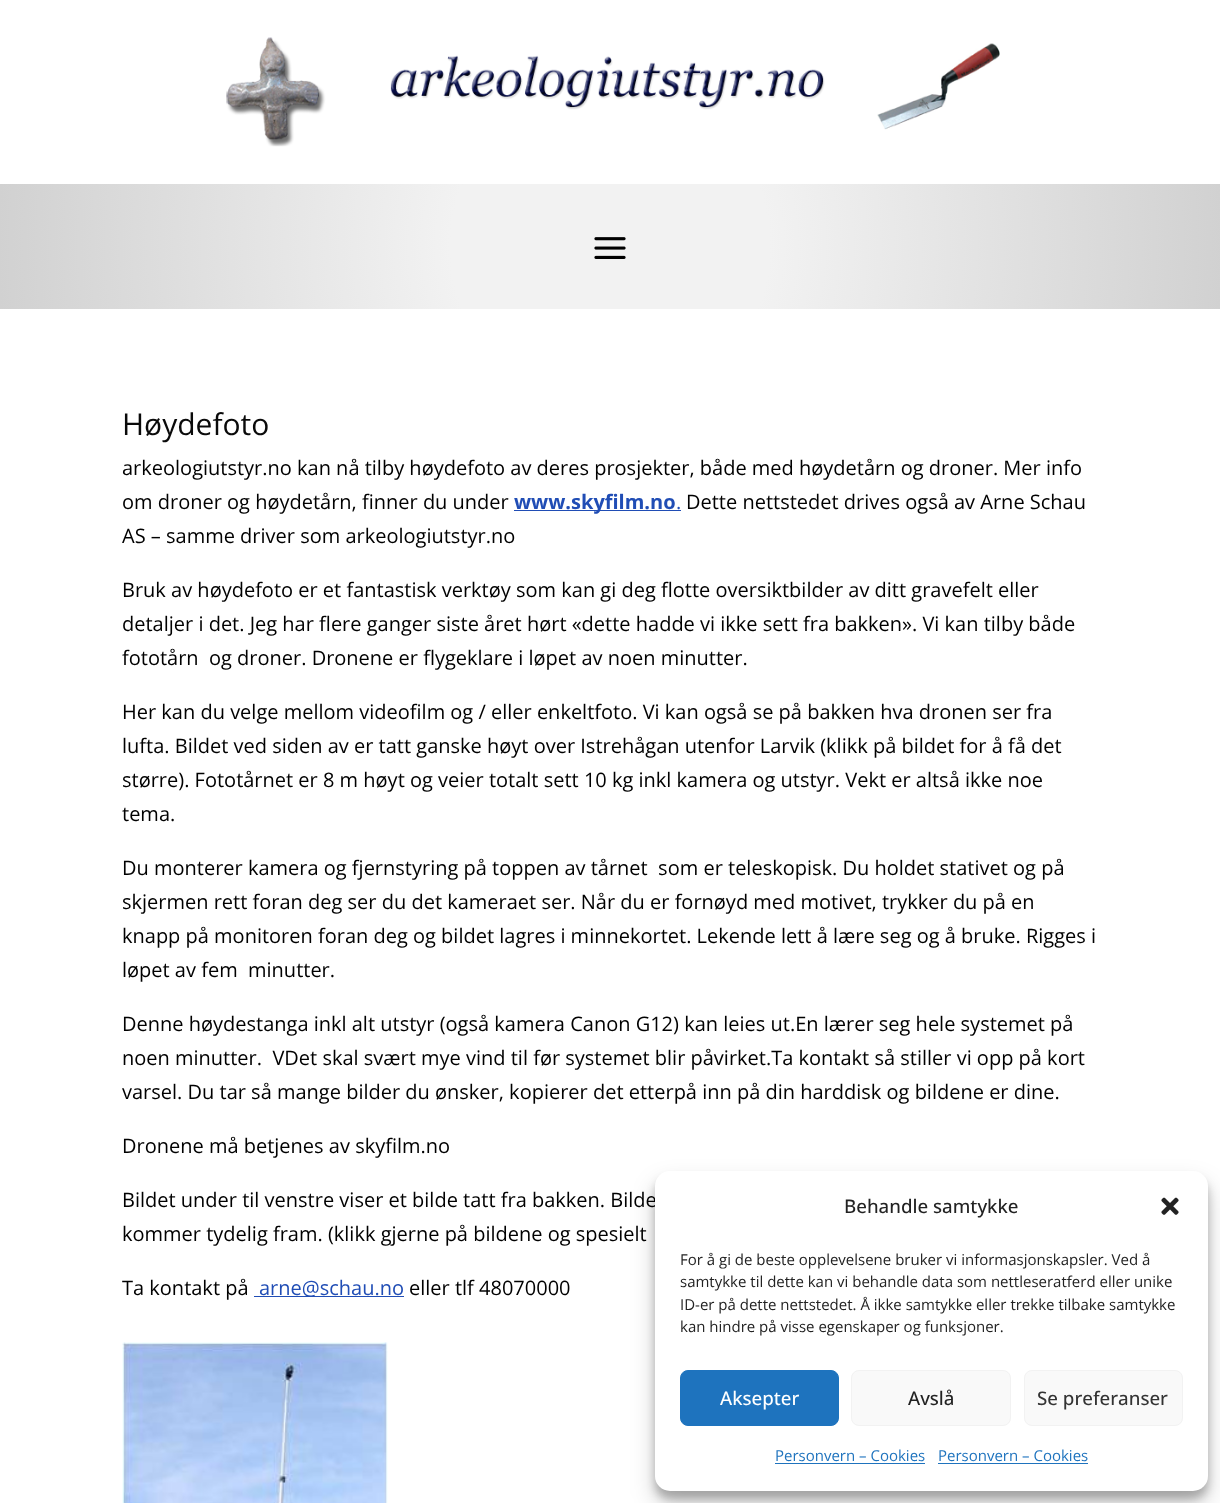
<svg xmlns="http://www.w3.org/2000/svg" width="1220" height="1503">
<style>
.a{font:30px Open Sans;fill:#0a0a0a}
.b{font:20px Open Sans;fill:#000}
.c{font:bold 20px Open Sans;fill:#204db5}
.d{font:20px Open Sans;fill:#204db5}
.e{font:500 18.75px Open Sans;fill:#222}
.f{font:15px Open Sans;fill:#222}
.g{font:500 18.75px Open Sans;fill:#fff}
.h{font:500 18.75px Open Sans;fill:#333}
.i{font:15px Open Sans;fill:#1e73be}
</style>
<defs>
<radialGradient id="g1" gradientUnits="userSpaceOnUse" cx="610" cy="246" r="613"><stop offset="0.26" stop-color="#f2f2f2"/><stop offset="1" stop-color="#d1d1d1"/></radialGradient>
</defs>
<rect width="100%" height="100%" fill="#fff"/>
<image href="1.png" x="226" y="37" width="774" height="110"/>
<path fill="url(#g1)" d="M0 184h1220v125H0z"/>
<image href="2.png" x="594" y="237" width="32" height="22"/>
<path fill="#204db5" d="M514 510h167v1H514z"/>
<path fill="#204db5" d="M254 1296h150v1H254z"/>
<image href="3.png" x="122" y="1342" width="266" height="161"/>
<rect fill="#0000003b" filter="blur(4px)" x="655" y="1179" width="553" height="320" rx="15"/>
<rect fill="#00000030" filter="blur(12.5px)" x="655" y="1184" width="553" height="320" rx="15"/>
<text class="a" x="122" y="435">Høydefoto</text>
<text class="b" x="122" y="475">arkeologiutstyr.no kan nå tilby høydefoto av deres prosjekter, både med høydetårn og droner. Mer info</text>
<text class="b" x="122" y="509">om droner og høydetårn, finner du under</text>
<text class="c" x="514" y="509">www.skyfilm.no</text>
<text class="d" x="676" y="509">.</text>
<text class="b" x="686" y="509">Dette nettstedet drives også av Arne Schau</text>
<text class="b" x="122" y="543">AS – samme driver som arkeologiutstyr.no</text>
<text class="b" x="122" y="597">Bruk av høydefoto er et fantastisk verktøy som kan gi deg flotte oversiktbilder av ditt gravefelt eller</text>
<text class="b" x="122" y="631">detaljer i det. Jeg har flere ganger siste året hørt «dette hadde vi ikke sett fra bakken». Vi kan tilby både</text>
<text class="b" xml:space="preserve" x="122" y="665">fototårn  og droner. Dronene er flygeklare i løpet av noen minutter.</text>
<text class="b" x="122" y="719">Her kan du velge mellom videofilm og / eller enkeltfoto. Vi kan også se på bakken hva dronen ser fra</text>
<text class="b" x="122" y="753">lufta. Bildet ved siden av er tatt ganske høyt over Istrehågan utenfor Larvik (klikk på bildet for å få det</text>
<text class="b" x="122" y="787">større). Fototårnet er 8 m høyt og veier totalt sett 10 kg inkl kamera og utstyr. Vekt er altså ikke noe</text>
<text class="b" x="122" y="821">tema.</text>
<text class="b" xml:space="preserve" x="122" y="875">Du monterer kamera og fjernstyring på toppen av tårnet  som er teleskopisk. Du holdet stativet og på</text>
<text class="b" x="122" y="909">skjermen rett foran deg ser du det kameraet ser. Når du er fornøyd med motivet, trykker du på en</text>
<text class="b" x="122" y="943">knapp på monitoren foran deg og bildet lagres i minnekortet. Lekende lett å lære seg og å bruke. Rigges i</text>
<text class="b" xml:space="preserve" x="122" y="977">løpet av fem  minutter.</text>
<text class="b" x="122" y="1031">Denne høydestanga inkl alt utstyr (også kamera Canon G12) kan leies ut.En lærer seg hele systemet på</text>
<text class="b" xml:space="preserve" x="122" y="1065">noen minutter.  VDet skal svært mye vind til før systemet blir påvirket.Ta kontakt så stiller vi opp på kort</text>
<text class="b" x="122" y="1099">varsel. Du tar så mange bilder du ønsker, kopierer det etterpå inn på din harddisk og bildene er dine.</text>
<text class="b" x="122" y="1153">Dronene må betjenes av skyfilm.no</text>
<text class="b" x="122" y="1207">Bildet under til venstre viser et bilde tatt fra bakken. Bilde</text>
<text class="b" x="122" y="1241">kommer tydelig fram. (klikk gjerne på bildene og spesielt</text>
<text class="b" x="122" y="1295">Ta kontakt på</text>
<text class="d" x="259" y="1295">arne@schau.no</text>
<text class="b" x="409" y="1295">eller tlf 48070000</text>
<rect fill="#fff" x="655" y="1171" width="553" height="320" rx="15"/>
<text class="e" x="844" y="1213">Behandle samtykke</text>
<image href="4.png" x="1161" y="1197" width="18" height="18"/>
<text class="f" x="680" y="1265">For å gi de beste opplevelsene bruker vi informasjonskapsler. Ved å</text>
<text class="f" x="680" y="1287">samtykke til dette kan vi behandle data som nettleseratferd eller unike</text>
<text class="f" x="680" y="1310">ID-er på dette nettstedet. Å ikke samtykke eller trekke tilbake samtykke</text>
<text class="f" x="680" y="1332">kan hindre på visse egenskaper og funksjoner.</text>
<rect fill="#1e73be" stroke="#1e73be" x="680.5" y="1370.5" width="158" height="55" rx="7.5"/>
<text class="g" x="720" y="1405">Aksepter</text>
<rect fill="#f9f9f9" stroke="#f2f2f2" x="851.5" y="1370.5" width="159" height="55" rx="7.5"/>
<text class="e" x="908" y="1405">Avslå</text>
<rect fill="#f9f9f9" stroke="#f2f2f2" x="1024.5" y="1370.5" width="158" height="55" rx="7.5"/>
<text class="h" x="1037" y="1405">Se preferanser</text>
<text class="i" x="775" y="1461">Personvern – Cookies</text>
<path fill="#1e73be" d="M775 1463h150v1H775z"/>
<text class="i" x="938" y="1461">Personvern – Cookies</text>
<path fill="#1e73be" d="M938 1463h150v1H938z"/>
</svg>
